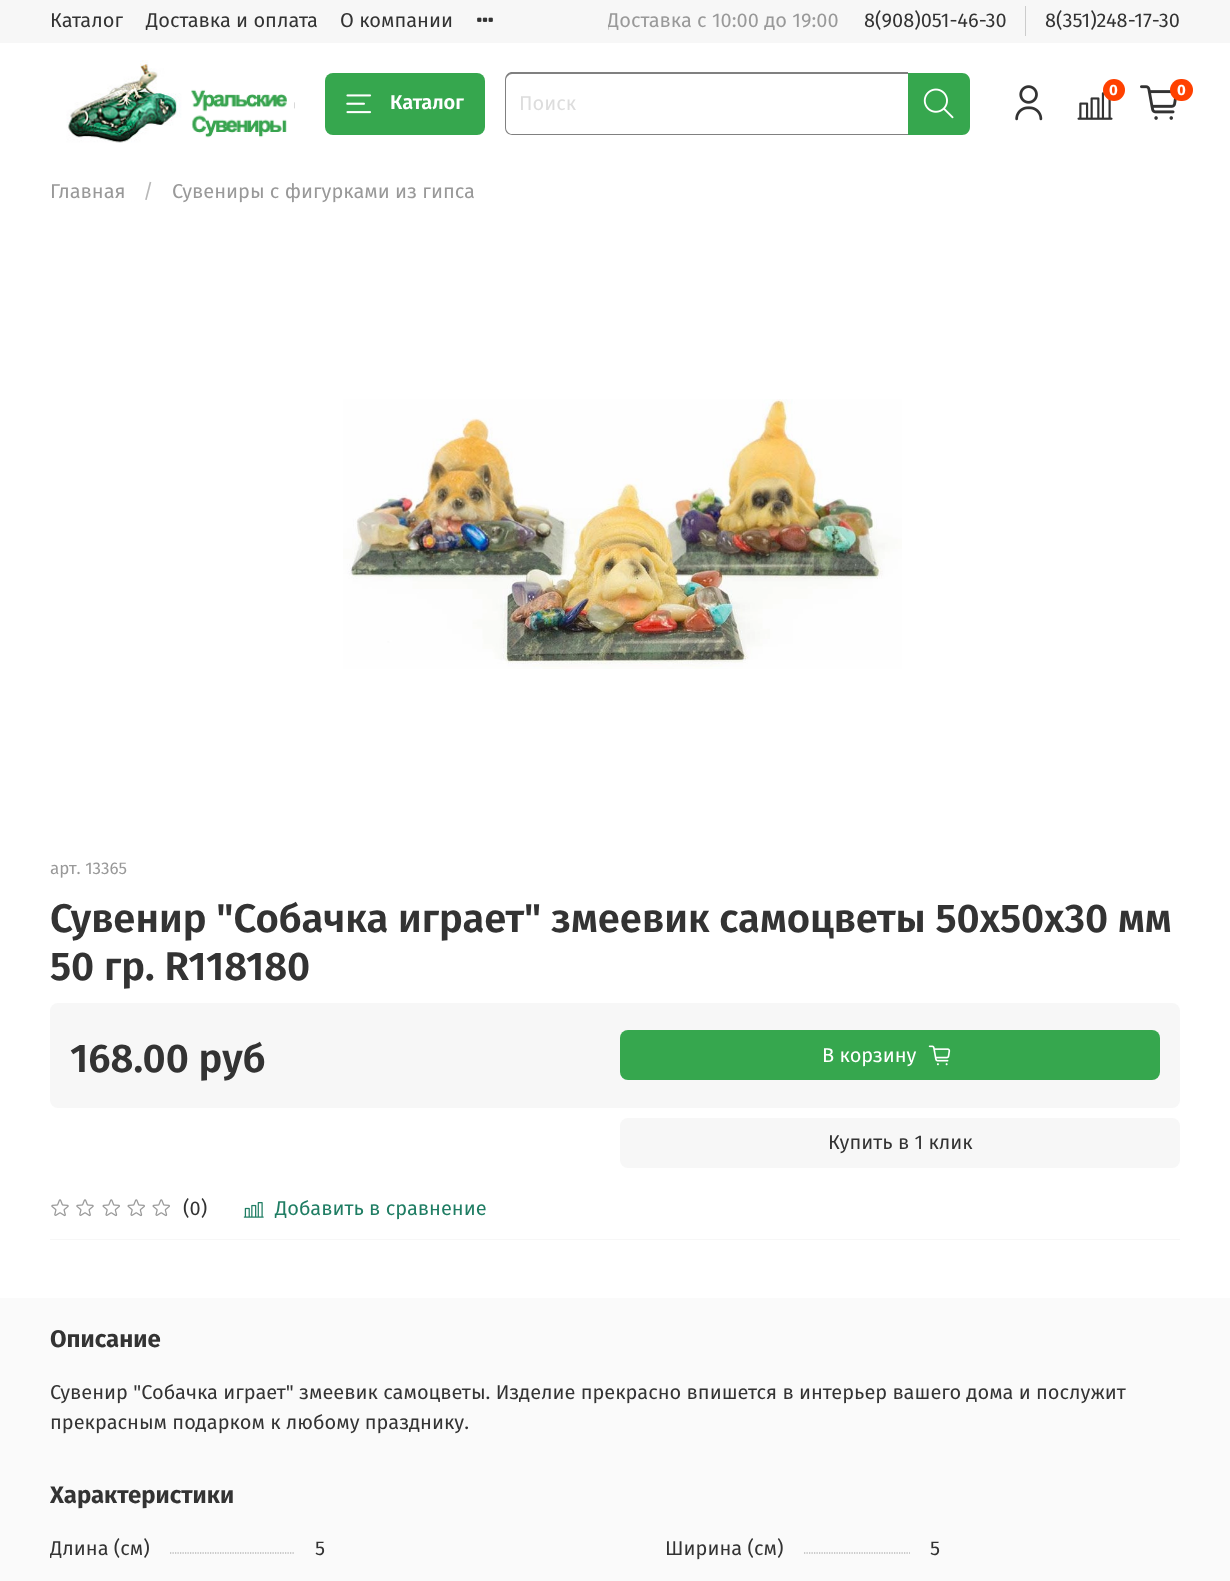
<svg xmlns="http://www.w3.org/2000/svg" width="1230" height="1581">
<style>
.a{font:20px Fira Sans;fill:#333}
.b{font:20px Fira Sans;fill:#999}
.c{font:bold 15px Fira Sans;fill:#fff}
.d{font:600 20px Fira Sans;fill:#fff}
.e{font:20px Fira Sans;fill:#ddd}
.f{font:20px Fira Sans;fill:#b8b8b8}
.g{font:17px Fira Sans;fill:#999}
.h{font:600 40px Fira Sans;fill:#333}
.i{font:20px Fira Sans;fill:#fff}
.j{font:20px Fira Sans;fill:#1f7d63}
.k{font:bold 24px Fira Sans;fill:#333}
</style>
<defs>
<clipPath id="clip1"><path d="M608 6h231v30H608z"/></clipPath>
<clipPath id="clip2"><path d="M50 1323h1130v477H50z"/></clipPath>
</defs>
<rect width="100%" height="100%" fill="#fff"/>
<path fill="#f7f7f7" d="M0 0h1230v43H0z"/>
<image href="1.png" x="477" y="17" width="16" height="5"/>
<path fill="#ccc" d="M1025 6h1v30H1025z"/>
<image href="2.png" x="66" y="60" width="229" height="83"/>
<image href="3.png" x="1015" y="85" width="28" height="36"/>
<image href="4.png" x="1077" y="92" width="36" height="28"/>
<circle fill="#ff4100" cx="1114" cy="90" r="11"/>
<image href="5.png" x="1140" y="85" width="37" height="35"/>
<rect fill="#ff4100" x="1170" y="79" width="23" height="22" rx="11"/>
<rect fill="#36a74e" x="325" y="73" width="160" height="62" rx="8"/>
<image href="6.png" x="346" y="94" width="26" height="20"/>
<path fill="#808080" fill-rule="evenodd" d="M512 72h396v63h-396c-4 0-7-3-7-7v-48c0-4 3-8 7-8zm0 2h396v60h-396c-3 0-6-3-6-6v-48c0-3 3-6 6-6z"/>
<path fill="#36a74e" d="M908 73h54c4.5 0 8 3.5 8 8v46c0 4.5-3.5 8-8 8h-54z"/>
<image href="7.png" x="923" y="88" width="31" height="31"/>
<image href="8.png" x="343" y="399" width="559" height="270"/>
<rect fill="#f7f7f7" x="50" y="1003" width="1130" height="105" rx="8"/>
<rect fill="#36a74e" x="620" y="1030" width="540" height="50" rx="8"/>
<image href="9.png" x="928" y="1045" width="23" height="21"/>
<rect fill="#f7f7f7" x="620" y="1118" width="560" height="50" rx="8"/>
<path fill="#f7f7f7" d="M50 1239h1130v1H50z"/>
<image href="10.png" x="51" y="1199" width="18" height="18"/>
<image href="10.png" x="76" y="1199" width="18" height="18"/>
<image href="11.png" x="102" y="1199" width="18" height="18"/>
<image href="11.png" x="127" y="1199" width="18" height="18"/>
<image href="11.png" x="152" y="1199" width="18" height="18"/>
<image href="12.png" x="243" y="1202" width="21" height="16"/>
<path fill="#fafafa" d="M0 1298h1230v283H0z"/>
<path fill="none" stroke="#999" stroke-width="1.2" stroke-dasharray="1.25 1.25" d="M170 1553h125"/>
<path fill="none" stroke="#999" stroke-width="1.2" stroke-dasharray="1.25 1.25" d="M804 1553h106"/>
<text class="a" x="50" y="27">Каталог</text>
<text class="a" x="146" y="27">Доставка и оплата</text>
<text class="a" x="340" y="27">О компании</text>
<g clip-path="url(#clip1)">
<text class="b" x="607" y="27">Доставка с 10:00 до 19:00</text>
</g>
<text class="a" x="864" y="27">8(908)051-46-30</text>
<text class="a" x="1045" y="27">8(351)248-17-30</text>
<text class="c" x="1109" y="95">0</text>
<text class="c" x="1177" y="95">0</text>
<text class="d" x="390" y="109">Каталог</text>
<text class="e" x="519" y="110">Поиск</text>
<text class="b" x="50" y="198">Главная</text>
<text class="f" x="143" y="198">/</text>
<text class="b" x="172" y="198">Сувениры с фигурками из гипса</text>
<text class="g" x="50" y="874">арт. 13365</text>
<text class="h" x="50" y="932">Сувенир "Собачка играет" змеевик самоцветы 50х50х30 мм</text>
<text class="h" x="50" y="980">50 гр. R118180</text>
<text class="h" x="70" y="1072">168.00 руб</text>
<text class="i" x="822" y="1062">В корзину</text>
<text class="a" x="828" y="1149">Купить в 1 клик</text>
<text class="a" x="183" y="1215">(0)</text>
<text class="j" x="275" y="1215">Добавить в сравнение</text>
<text class="k" x="50" y="1347">Описание</text>
<text class="a" x="50" y="1399">Сувенир "Собачка играет" змеевик самоцветы. Изделие прекрасно впишется в интерьер вашего дома и послужит</text>
<text class="a" x="50" y="1429">прекрасным подарком к любому празднику.</text>
<text class="k" x="50" y="1503">Характеристики</text>
<g clip-path="url(#clip2)">
<text class="a" x="50" y="1555">Длина (см)</text>
</g>
<text class="a" x="315" y="1555">5</text>
<text class="a" x="665" y="1555">Ширина (см)</text>
<text class="a" x="930" y="1555">5</text>
</svg>
